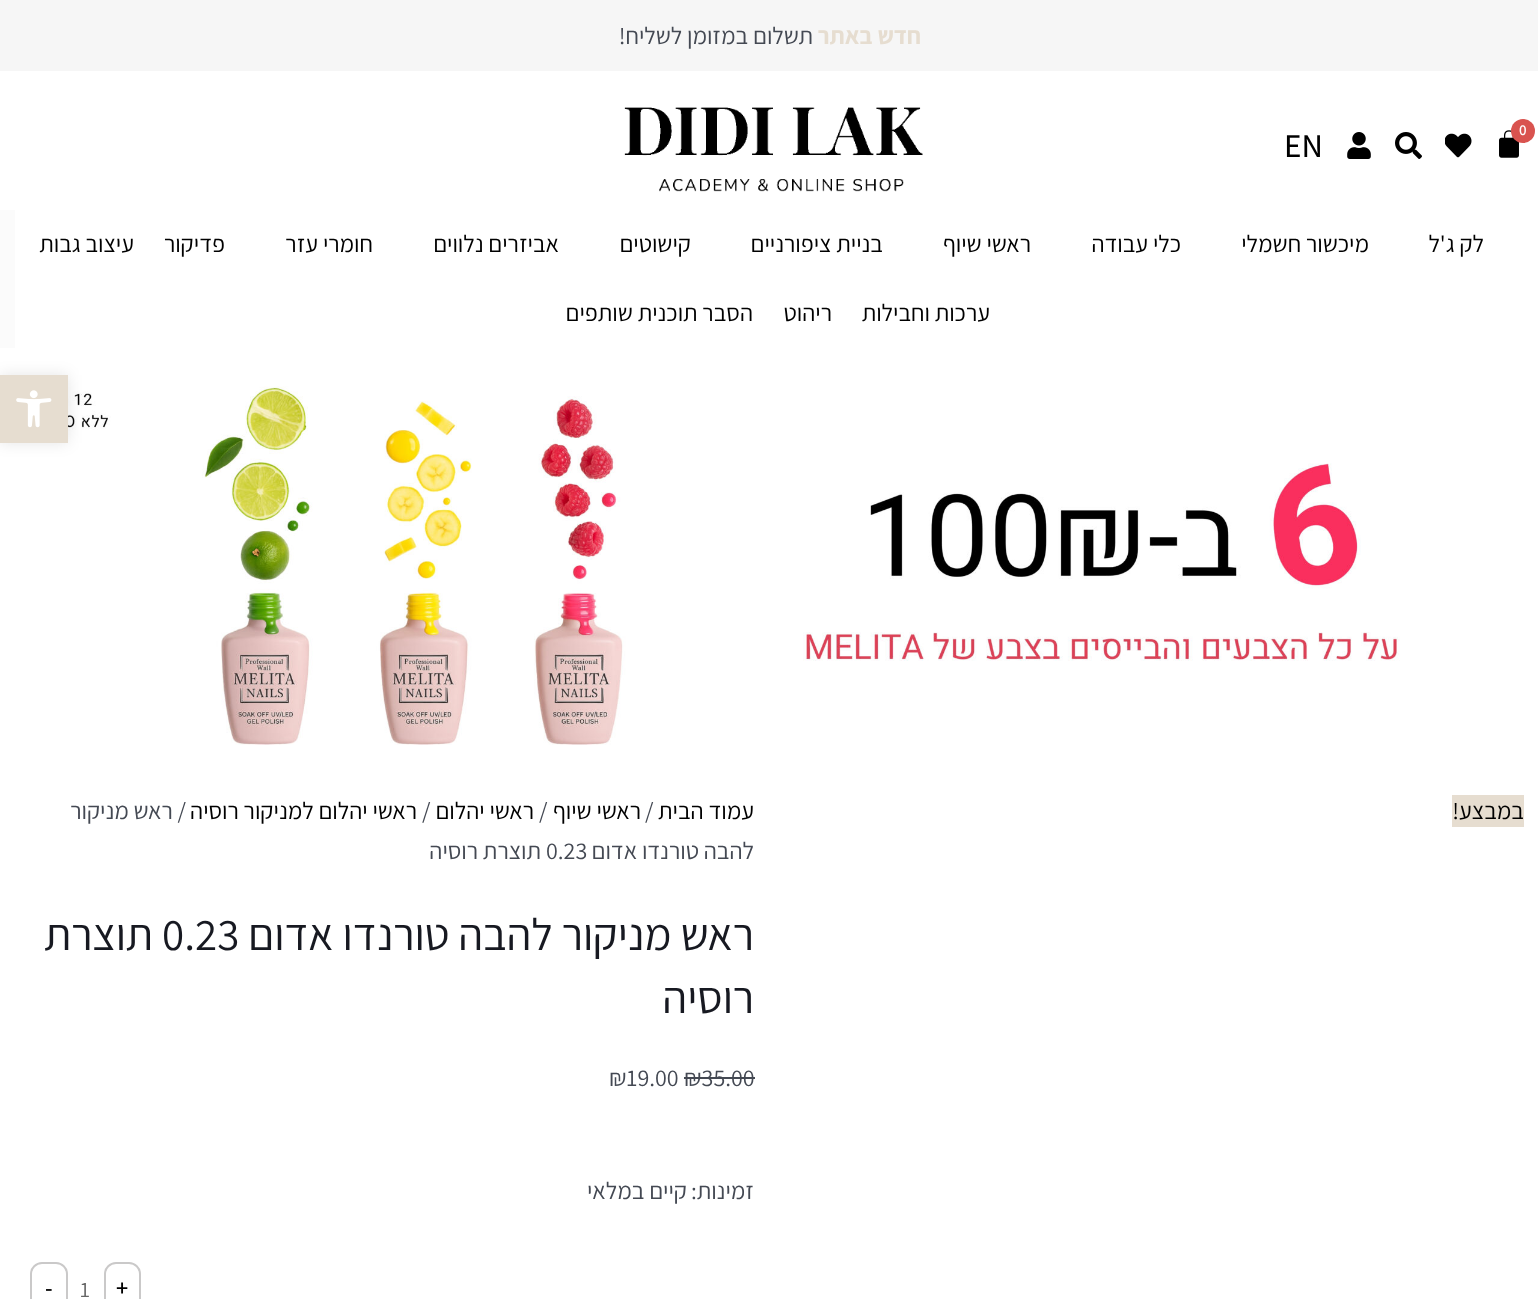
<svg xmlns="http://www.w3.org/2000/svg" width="1538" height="1299">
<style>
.a{font:bold 24px Assistant;direction:rtl;fill:#e6ddd0}
.b{font:24px Assistant;direction:rtl;fill:#444953}
.c{font:600 15px Assistant;fill:#fff}
.d{font:500 33px Assistant;fill:#000}
.e{font:24px Assistant;direction:rtl;fill:#000}
.f{font:24px Assistant;fill:#444953}
.g{font:45px Assistant;direction:rtl;fill:#171921}
.h{font:45px Assistant;fill:#171921}
.i{font:600 24px Assistant;fill:#000}
.j{font:22px Assistant;fill:#666}
</style>
<rect width="100%" height="100%" fill="#fff"/>
<path fill="#f6f6f6" d="M0 0h1538v71H0z"/>
<image href="1.png" x="1499" y="130" width="20" height="28"/>
<circle fill="#d9534f" cx="1523" cy="131" r="12"/>
<image href="2.png" x="1445" y="133" width="27" height="25"/>
<image href="3.png" x="1395" y="132" width="27" height="27"/>
<image href="4.png" x="1347" y="132" width="24" height="27"/>
<image href="5.png" x="624" y="107" width="299" height="85"/>
<path fill="#fbfbfb" d="M0 210h15v138H0z"/>
<image href="6.png" x="43" y="386" width="1357" height="359"/>
<path fill="#e6ddd0" d="M1452 795h72v32H1452z"/>
<path fill="#444953" d="M684 1077h71v2H684z"/>
<rect fill="none" stroke="#cac9c9" stroke-width="2" x="105" y="1263" width="35" height="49" rx="11"/>
<rect fill="none" stroke="#cac9c9" stroke-width="2" x="31" y="1263" width="36" height="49" rx="11"/>
<path fill="#0000001a" filter="blur(7.5px)" d="M0 375h68v68H0z"/>
<path fill="#e6ddd0" d="M0 375h68v68H0z"/>
<image href="7.png" x="16" y="390" width="36" height="38"/>
<text class="a" x="921" y="44">חדש באתר</text>
<text class="b" x="813" y="44">תשלום במזומן לשליח!</text>
<text class="c" x="1519" y="135">0</text>
<text class="d" x="1284" y="157">EN</text>
<text class="e" x="1484" y="252">לק ג'ל</text>
<text class="e" x="1369" y="252">מיכשור חשמלי</text>
<text class="e" x="1181" y="252">כלי עבודה</text>
<text class="e" x="1031" y="252">ראשי שיוף</text>
<text class="e" x="883" y="252">בניית ציפורניים</text>
<text class="e" x="691" y="252">קישוטים</text>
<text class="e" x="559" y="252">אביזרים נלווים</text>
<text class="e" x="373" y="252">חומרי עזר</text>
<text class="e" x="225" y="252">פדיקור</text>
<text class="e" x="134" y="252">עיצוב גבות</text>
<text class="e" x="990" y="321">ערכות וחבילות</text>
<text class="e" x="832" y="321">ריהוט</text>
<text class="e" x="753" y="321">הסבר תוכנית שותפים</text>
<text class="e" x="1524" y="819">במבצע!</text>
<text class="e" x="754" y="819">עמוד הבית</text>
<text class="f" x="645" y="819">/</text>
<text class="e" x="641" y="819">ראשי שיוף</text>
<text class="f" x="539" y="819">/</text>
<text class="e" x="534" y="819">ראשי יהלום</text>
<text class="f" x="422" y="819">/</text>
<text class="e" x="417" y="819">ראשי יהלום למניקור רוסיה</text>
<text class="b" x="186" y="819">/ ראש מניקור</text>
<text class="b" x="754" y="859">להבה טורנדו אדום</text>
<text class="f" x="546" y="859">0.23</text>
<text class="b" x="541" y="859">תוצרת רוסיה</text>
<text class="g" x="754" y="950">ראש מניקור להבה טורנדו אדום</text>
<text class="h" x="162" y="950">0.23</text>
<text class="g" x="153" y="950">תוצרת</text>
<text class="g" x="754" y="1013">רוסיה</text>
<text class="f" x="684" y="1086">₪35.00</text>
<text class="f" x="609" y="1086">₪19.00</text>
<text class="b" x="754" y="1199">זמינות:</text>
<text class="b" x="687" y="1199">קיים במלאי</text>
<text class="i" x="116" y="1296">+</text>
<text class="j" x="80" y="1297">1</text>
<text class="i" x="45" y="1296">-</text>
</svg>
